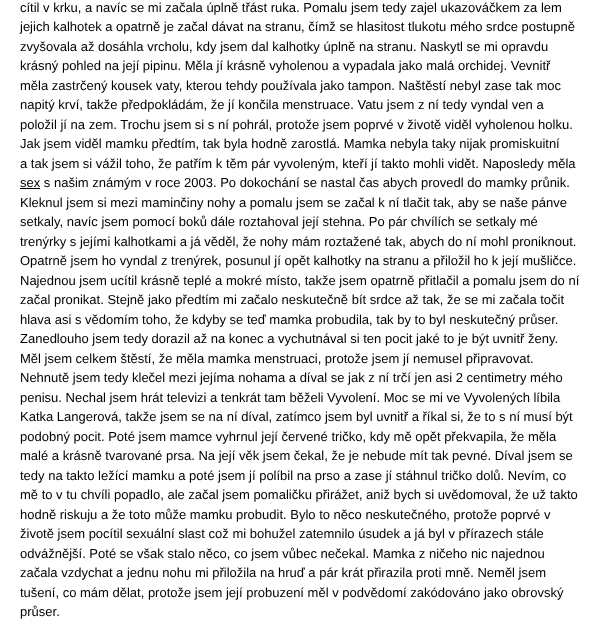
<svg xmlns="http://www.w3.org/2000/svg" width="601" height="632">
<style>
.a{font:13px Liberation Sans;fill:#000}
</style>
<rect width="100%" height="100%" fill="#fff"/>
<path fill="#000" d="M20 188h20v1H20z"/>
<text class="a" x="20" y="12">cítil v krku, a navíc se mi začala úplně třást ruka. Pomalu jsem tedy zajel ukazováčkem za lem</text>
<text class="a" x="20" y="31">jejich kalhotek a opatrně je začal dávat na stranu, čímž se hlasitost tlukotu mého srdce postupně</text>
<text class="a" x="20" y="51">zvyšovala až dosáhla vrcholu, kdy jsem dal kalhotky úplně na stranu. Naskytl se mi opravdu</text>
<text class="a" x="20" y="70">krásný pohled na její pipinu. Měla jí krásně vyholenou a vypadala jako malá orchidej. Vevnitř</text>
<text class="a" x="20" y="90">měla zastrčený kousek vaty, kterou tehdy používala jako tampon. Naštěstí nebyl zase tak moc</text>
<text class="a" x="20" y="109">napitý krví, takže předpokládám, že jí končila menstruace. Vatu jsem z ní tedy vyndal ven a</text>
<text class="a" x="20" y="129">položil jí na zem. Trochu jsem si s ní pohrál, protože jsem poprvé v životě viděl vyholenou holku.</text>
<text class="a" x="20" y="148">Jak jsem viděl mamku předtím, tak byla hodně zarostlá. Mamka nebyla taky nijak promiskuitní</text>
<text class="a" x="20" y="168">a tak jsem si vážil toho, že patřím k těm pár vyvoleným, kteří jí takto mohli vidět. Naposledy měla</text>
<text class="a" x="20" y="187">sex s našim známým v roce 2003. Po dokochání se nastal čas abych provedl do mamky průnik.</text>
<text class="a" x="20" y="207">Kleknul jsem si mezi maminčiny nohy a pomalu jsem se začal k ní tlačit tak, aby se naše pánve</text>
<text class="a" x="20" y="226">setkaly, navíc jsem pomocí boků dále roztahoval její stehna. Po pár chvílích se setkaly mé</text>
<text class="a" x="20" y="246">trenýrky s jejími kalhotkami a já věděl, že nohy mám roztažené tak, abych do ní mohl proniknout.</text>
<text class="a" x="20" y="265">Opatrně jsem ho vyndal z trenýrek, posunul jí opět kalhotky na stranu a přiložil ho k její mušličce.</text>
<text class="a" x="20" y="285">Najednou jsem ucítil krásně teplé a mokré místo, takže jsem opatrně přitlačil a pomalu jsem do ní</text>
<text class="a" x="20" y="304">začal pronikat. Stejně jako předtím mi začalo neskutečně bít srdce až tak, že se mi začala točit</text>
<text class="a" x="20" y="324">hlava asi s vědomím toho, že kdyby se teď mamka probudila, tak by to byl neskutečný průser.</text>
<text class="a" x="20" y="343">Zanedlouho jsem tedy dorazil až na konec a vychutnával si ten pocit jaké to je být uvnitř ženy.</text>
<text class="a" x="20" y="363">Měl jsem celkem štěstí, že měla mamka menstruaci, protože jsem jí nemusel připravovat.</text>
<text class="a" x="20" y="382">Nehnutě jsem tedy klečel mezi jejíma nohama a díval se jak z ní trčí jen asi 2 centimetry mého</text>
<text class="a" x="20" y="402">penisu. Nechal jsem hrát televizi a tenkrát tam běželi Vyvolení. Moc se mi ve Vyvolených líbila</text>
<text class="a" x="20" y="421">Katka Langerová, takže jsem se na ní díval, zatímco jsem byl uvnitř a říkal si, že to s ní musí být</text>
<text class="a" x="20" y="441">podobný pocit. Poté jsem mamce vyhrnul její červené tričko, kdy mě opět překvapila, že měla</text>
<text class="a" x="20" y="460">malé a krásně tvarované prsa. Na její věk jsem čekal, že je nebude mít tak pevné. Díval jsem se</text>
<text class="a" x="20" y="480">tedy na takto ležící mamku a poté jsem jí políbil na prso a zase jí stáhnul tričko dolů. Nevím, co</text>
<text class="a" x="20" y="499">mě to v tu chvíli popadlo, ale začal jsem pomaličku přirážet, aniž bych si uvědomoval, že už takto</text>
<text class="a" x="20" y="519">hodně riskuju a že toto může mamku probudit. Bylo to něco neskutečného, protože poprvé v</text>
<text class="a" x="20" y="538">životě jsem pocítil sexuální slast což mi bohužel zatemnilo úsudek a já byl v přírazech stále</text>
<text class="a" x="20" y="558">odvážnější. Poté se však stalo něco, co jsem vůbec nečekal. Mamka z ničeho nic najednou</text>
<text class="a" x="20" y="577">začala vzdychat a jednu nohu mi přiložila na hruď a pár krát přirazila proti mně. Neměl jsem</text>
<text class="a" x="20" y="597">tušení, co mám dělat, protože jsem její probuzení měl v podvědomí zakódováno jako obrovský</text>
<text class="a" x="20" y="616">průser.</text>
</svg>
